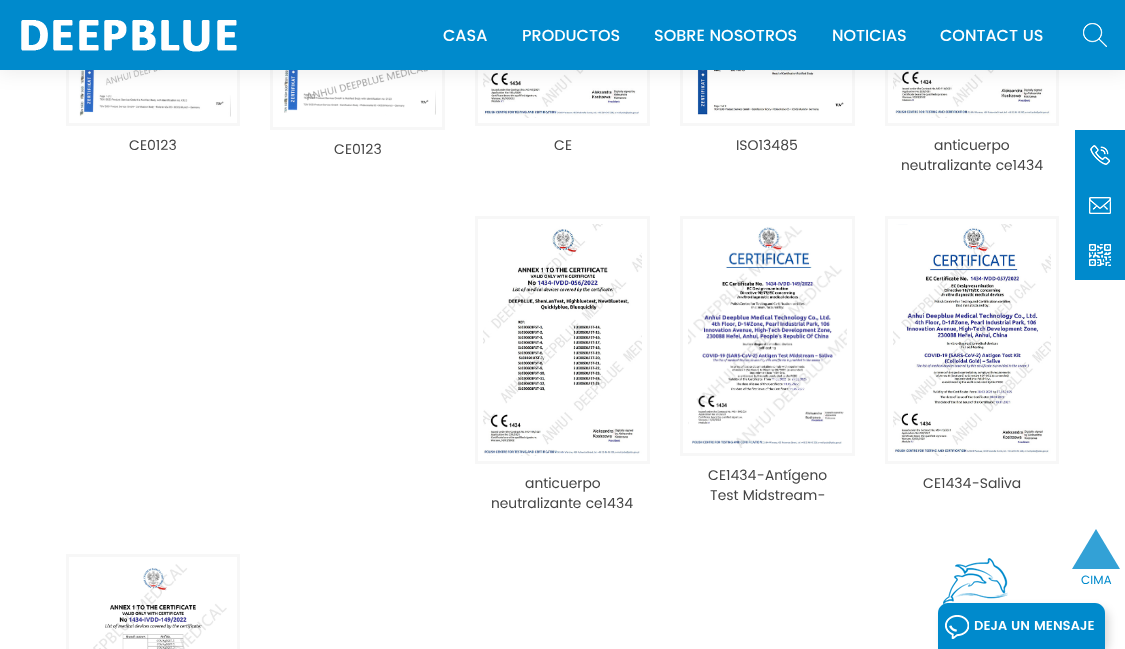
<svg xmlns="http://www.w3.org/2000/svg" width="1125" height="649">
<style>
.a{font:500 16px Poppins;fill:#fff}
.b{font:14px Poppins;fill:#444}
.c{font:12px Poppins;fill:#008acc}
.d{font:600 13px Poppins;fill:#fff}
</style>
<rect width="100%" height="100%" fill="#fff"/>
<path fill="none" stroke="#f7f7f7" stroke-width="3" d="M67.5 -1.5h171v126H67.5z"/>
<image href="3.png" x="79" y="70" width="152" height="47"/>
<path fill="none" stroke="#f7f7f7" stroke-width="3" d="M271.5 -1.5h172v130H271.5z"/>
<image href="4.png" x="284" y="70" width="152" height="45"/>
<path fill="none" stroke="#f7f7f7" stroke-width="3" d="M476.5 -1.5h172v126H476.5z"/>
<image href="5.png" x="483" y="70" width="159" height="48"/>
<path fill="none" stroke="#f7f7f7" stroke-width="3" d="M681.5 -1.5h172v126H681.5z"/>
<image href="6.png" x="697" y="70" width="147" height="45"/>
<path fill="none" stroke="#f7f7f7" stroke-width="3" d="M886.5 -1.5h171v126H886.5z"/>
<image href="7.png" x="893" y="70" width="158" height="48"/>
<path fill="#00000014" filter="blur(10px)" d="M-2 -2h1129v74H-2z"/>
<path fill="#008acc" d="M0 0h1125v70H0z"/>
<image href="1.png" x="21" y="20" width="216" height="32"/>
<image href="2.png" x="1083" y="23" width="24" height="24"/>
<path fill="none" stroke="#f7f7f7" stroke-width="3" d="M476.5 217.5h172v245H476.5z"/>
<image href="8.png" x="483" y="224" width="159" height="232"/>
<path fill="none" stroke="#f7f7f7" stroke-width="3" d="M681.5 217.5h172v237H681.5z"/>
<image href="9.png" x="688" y="226" width="159" height="222"/>
<path fill="none" stroke="#f7f7f7" stroke-width="3" d="M886.5 217.5h171v245H886.5z"/>
<image href="10.png" x="893" y="224" width="158" height="232"/>
<path fill="none" stroke="#f7f7f7" stroke-width="3" d="M67.5 555.5h171v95H67.5z"/>
<image href="11.png" x="93" y="564" width="134" height="85"/>
<path fill="#008acc" d="M1075 130h50v150H1075z"/>
<image href="12.png" x="1090" y="145" width="20" height="20"/>
<image href="13.png" x="1089" y="197" width="22" height="17"/>
<image href="14.png" x="1089" y="244" width="22" height="22"/>
<path fill="#33a1d6" d="M1096 529l-24 40h48z"/>
<rect fill="#00000026" filter="blur(4px)" x="942" y="608" width="167" height="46" rx="10"/>
<path fill="#008acc" d="M948 603h147c5.5 0 10 4.5 10 10v36h-167v-36c0-5.5 4.5-10 10-10z"/>
<image href="15.png" x="943" y="558" width="65" height="46"/>
<image href="16.png" x="945" y="615" width="24" height="24"/>
<text class="a" x="443" y="41">CASA</text>
<text class="a" x="522" y="41">PRODUCTOS</text>
<text class="a" x="654" y="41">SOBRE NOSOTROS</text>
<text class="a" x="832" y="41">NOTICIAS</text>
<text class="a" x="940" y="41">CONTACT US</text>
<text class="b" x="129" y="150">CE0123</text>
<text class="b" x="334" y="154">CE0123</text>
<text class="b" x="554" y="150">CE</text>
<text class="b" x="736" y="150">ISO13485</text>
<text class="b" x="934" y="150">anticuerpo</text>
<text class="b" x="901" y="170">neutralizante ce1434</text>
<text class="b" x="525" y="488">anticuerpo</text>
<text class="b" x="491" y="508">neutralizante ce1434</text>
<text class="b" x="708" y="480">CE1434-Antígeno</text>
<text class="b" x="710" y="500">Test Midstream-</text>
<text class="b" x="923" y="488">CE1434-Saliva</text>
<text class="c" x="1081" y="584">CIMA</text>
<text class="d" x="974" y="630">DEJA UN MENSAJE</text>
</svg>
